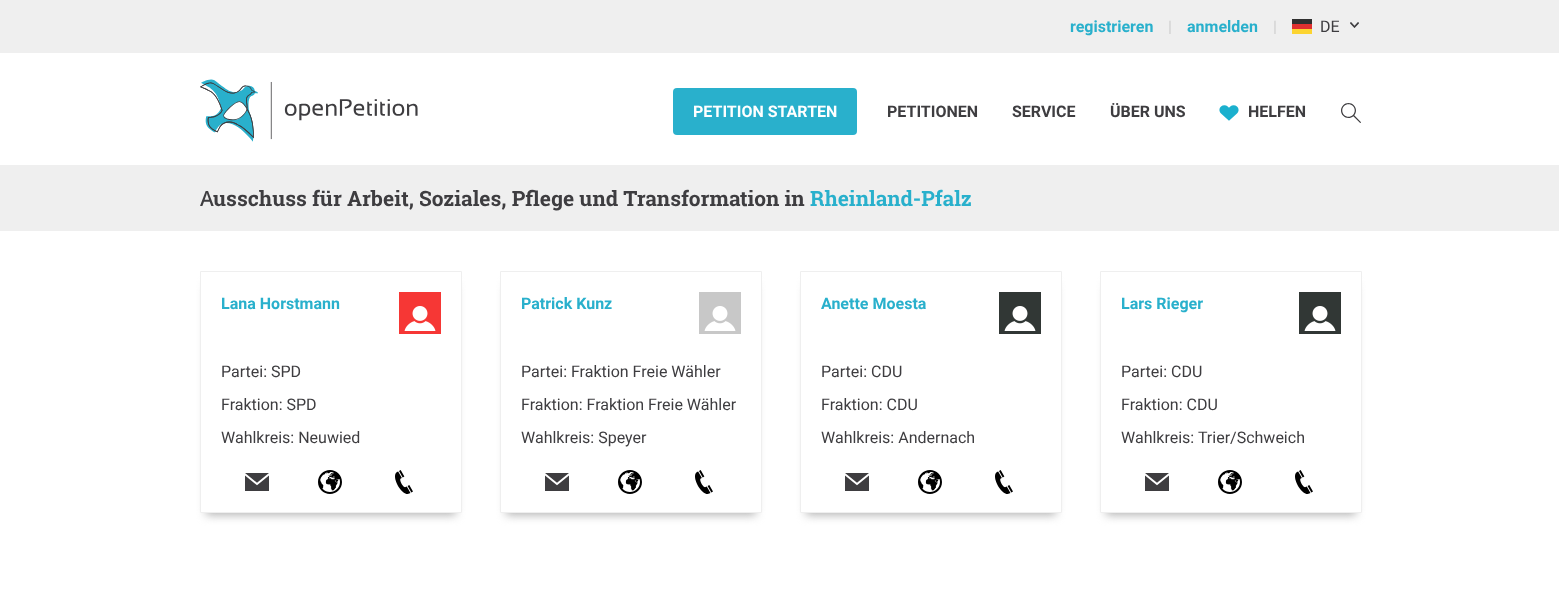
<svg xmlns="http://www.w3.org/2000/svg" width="1559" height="603">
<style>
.a{font:bold 16px Roboto;fill:#29b0cc}
.b{font:16px Roboto;fill:#cfcfcf}
.c{font:16px Roboto;fill:#3e3d40}
.d{font:bold 16px Roboto;fill:#fff}
.e{font:bold 16px Roboto;fill:#3e3d40}
.f{font:500 21px Noto Sans;fill:#3e3d40}
.g{font:bold 21px Roboto Slab;fill:#3e3d40}
.h{font:bold 21px Roboto Slab;fill:#29b0cc}
</style>
<defs>
<clipPath id="clip1"><path d="M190 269h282v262h-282zm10 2h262v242h-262z" clip-rule="evenodd"/></clipPath>
<clipPath id="clip2"><path d="M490 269h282v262h-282zm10 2h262v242h-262z" clip-rule="evenodd"/></clipPath>
<clipPath id="clip3"><path d="M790 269h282v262h-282zm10 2h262v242h-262z" clip-rule="evenodd"/></clipPath>
<clipPath id="clip4"><path d="M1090 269h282v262h-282zm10 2h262v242h-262z" clip-rule="evenodd"/></clipPath>
</defs>
<rect width="100%" height="100%" fill="#fff"/>
<path fill="#efefef" d="M0 0h1559v53H0z"/>
<image href="1.png" x="1292" y="19" width="20" height="15"/>
<image href="2.png" x="1350" y="22" width="9" height="6"/>
<image href="3.png" x="200" y="79" width="218" height="63"/>
<rect fill="#29b0cc" x="673" y="88" width="184" height="47" rx="4"/>
<image href="4.png" x="1219" y="105" width="20" height="16"/>
<image href="5.png" x="1341" y="103" width="20" height="20"/>
<path fill="#efefef" d="M0 165h1559v66H0z"/>
<g clip-path="url(#clip1)">
<path fill="#b2b2b2" filter="blur(5px)" d="M206 285h250v230H206z"/>
</g>
<path fill="none" stroke="#efefef" d="M200.5 271.5h261v241H200.5z"/>
<path fill="#f63735" d="M399 292h42v42H399z"/>
<image href="6.png" x="404" y="306" width="32" height="25"/>
<image href="7.png" x="245" y="473" width="24" height="18"/>
<image href="8.png" x="318" y="470" width="24" height="24"/>
<image href="9.png" x="395" y="470" width="18" height="24"/>
<g clip-path="url(#clip2)">
<path fill="#b2b2b2" filter="blur(5px)" d="M506 285h250v230H506z"/>
</g>
<path fill="none" stroke="#efefef" d="M500.5 271.5h261v241H500.5z"/>
<path fill="#c8c8c8" d="M699 292h42v42H699z"/>
<image href="10.png" x="704" y="306" width="32" height="25"/>
<image href="11.png" x="545" y="473" width="24" height="18"/>
<image href="8.png" x="618" y="470" width="24" height="24"/>
<image href="9.png" x="695" y="470" width="18" height="24"/>
<g clip-path="url(#clip3)">
<path fill="#b2b2b2" filter="blur(5px)" d="M806 285h250v230H806z"/>
</g>
<path fill="none" stroke="#efefef" d="M800.5 271.5h261v241H800.5z"/>
<path fill="#313735" d="M999 292h42v42H999z"/>
<image href="12.png" x="1004" y="306" width="32" height="25"/>
<image href="11.png" x="845" y="473" width="24" height="18"/>
<image href="8.png" x="918" y="470" width="24" height="24"/>
<image href="9.png" x="995" y="470" width="18" height="24"/>
<g clip-path="url(#clip4)">
<path fill="#b2b2b2" filter="blur(5px)" d="M1106 285h250v230H1106z"/>
</g>
<path fill="none" stroke="#efefef" d="M1100.5 271.5h261v241H1100.5z"/>
<path fill="#313735" d="M1299 292h42v42H1299z"/>
<image href="12.png" x="1304" y="306" width="32" height="25"/>
<image href="11.png" x="1145" y="473" width="24" height="18"/>
<image href="8.png" x="1218" y="470" width="24" height="24"/>
<image href="9.png" x="1295" y="470" width="18" height="24"/>
<text class="a" x="1070" y="32">registrieren</text>
<text class="b" x="1168" y="32">|</text>
<text class="a" x="1187" y="32">anmelden</text>
<text class="b" x="1273" y="32">|</text>
<text class="c" x="1320" y="32">DE</text>
<text class="d" x="693" y="117">PETITION STARTEN</text>
<text class="e" x="887" y="117">PETITIONEN</text>
<text class="e" x="1012" y="117">SERVICE</text>
<text class="e" x="1110" y="117">ÜBER UNS</text>
<text class="e" x="1248" y="117">HELFEN</text>
<text class="f" x="200" y="206">A</text>
<text class="g" x="213" y="206">usschuss für Arbeit, Soziales, Pflege und Transformation in</text>
<text class="h" x="810" y="206">Rheinland-Pfalz</text>
<text class="a" x="221" y="309">Lana Horstmann</text>
<text class="c" x="221" y="377">Partei: SPD</text>
<text class="c" x="221" y="410">Fraktion: SPD</text>
<text class="c" x="221" y="443">Wahlkreis: Neuwied</text>
<text class="a" x="521" y="309">Patrick Kunz</text>
<text class="c" x="521" y="377">Partei: Fraktion Freie Wähler</text>
<text class="c" x="521" y="410">Fraktion: Fraktion Freie Wähler</text>
<text class="c" x="521" y="443">Wahlkreis: Speyer</text>
<text class="a" x="821" y="309">Anette Moesta</text>
<text class="c" x="821" y="377">Partei: CDU</text>
<text class="c" x="821" y="410">Fraktion: CDU</text>
<text class="c" x="821" y="443">Wahlkreis: Andernach</text>
<text class="a" x="1121" y="309">Lars Rieger</text>
<text class="c" x="1121" y="377">Partei: CDU</text>
<text class="c" x="1121" y="410">Fraktion: CDU</text>
<text class="c" x="1121" y="443">Wahlkreis: Trier/Schweich</text>
</svg>
